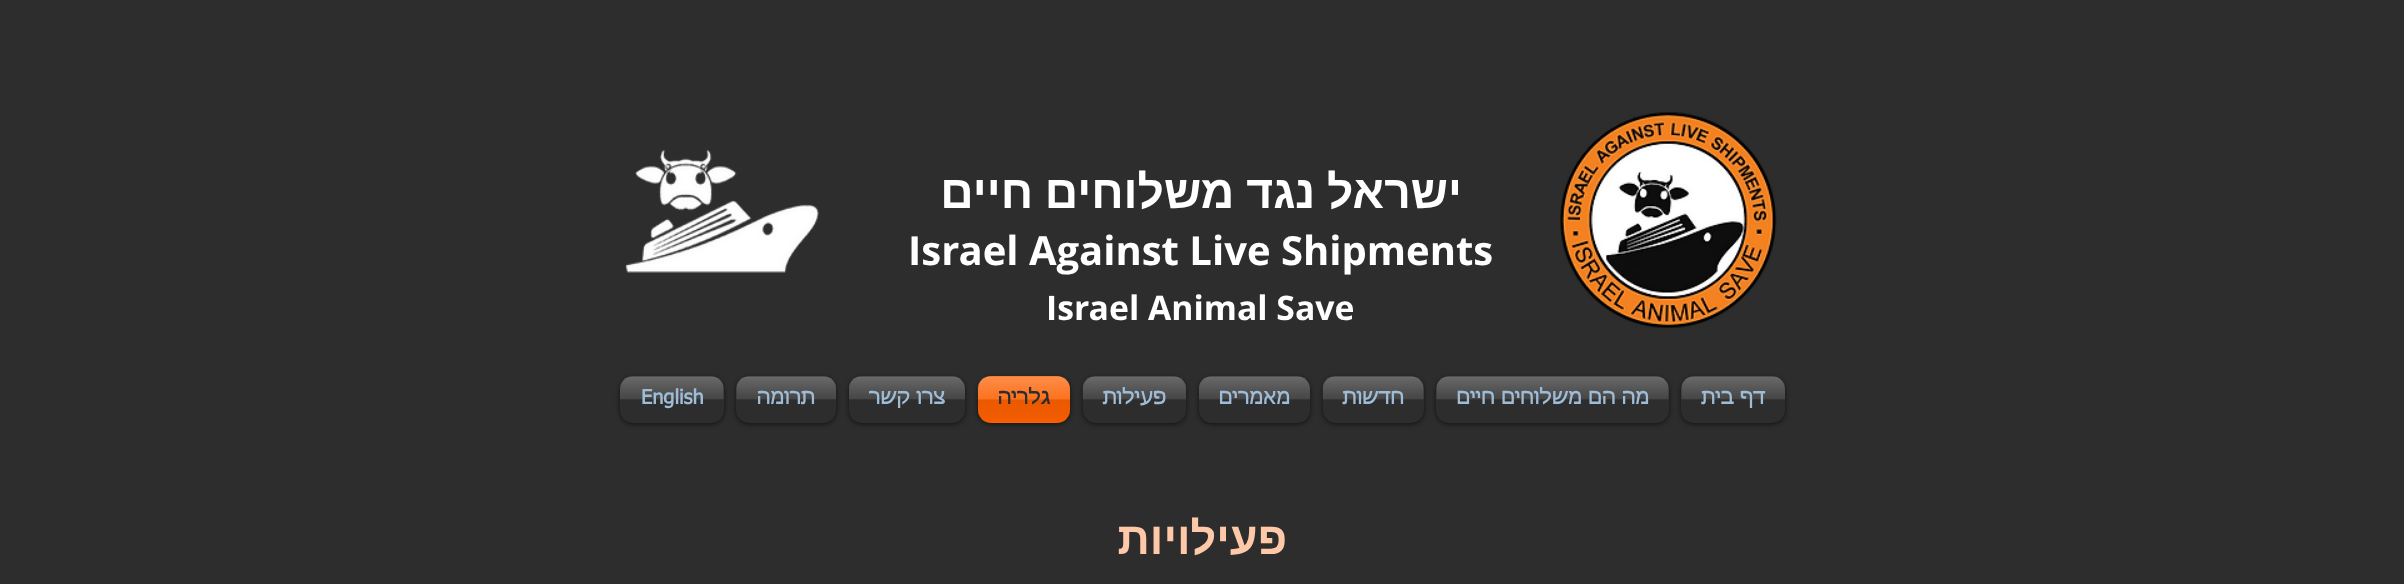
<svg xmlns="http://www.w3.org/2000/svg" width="2404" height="584">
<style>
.a{font:bold 46.25px Liberation Sans;direction:rtl;fill:#fff}
.b{font:bold 40px Open Sans;fill:#fff}
.c{font:bold 33.75px Open Sans;fill:#fff}
.d{font:bold 20px 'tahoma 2';direction:rtl;fill:#9fbcd7}
.e{font:bold 20px 'tahoma 2';direction:rtl;fill:#2d2d2d}
.f{font:bold 20px tahoma;fill:#9fbcd7}
.g{font:bold 45px Liberation Sans;direction:rtl;fill:#fec9a9}
</style>
<rect width="100%" height="100%" fill="#2d2d2d"/>
<image href="1.png" x="1560" y="112" width="217" height="216"/>
<image href="2.png" x="625" y="150" width="194" height="123"/>
<rect fill="#00000099" filter="blur(2.5px)" x="1681" y="378" width="104" height="46" rx="13"/>
<rect fill="#2d2d2d" x="1681" y="376" width="104" height="47" rx="13"/>
<image href="3.png" x="1681" y="376" width="104" height="24"/>
<rect fill="#00000099" filter="blur(2.5px)" x="1436" y="378" width="233" height="46" rx="13"/>
<rect fill="#2d2d2d" x="1436" y="376" width="233" height="47" rx="13"/>
<image href="4.png" x="1436" y="376" width="233" height="24"/>
<rect fill="#00000099" filter="blur(2.5px)" x="1323" y="378" width="101" height="46" rx="13"/>
<rect fill="#2d2d2d" x="1323" y="376" width="101" height="47" rx="13"/>
<image href="5.png" x="1322" y="376" width="102" height="24"/>
<rect fill="#00000099" filter="blur(2.5px)" x="1199" y="378" width="111" height="46" rx="13"/>
<rect fill="#2d2d2d" x="1199" y="376" width="111" height="47" rx="13"/>
<image href="6.png" x="1199" y="376" width="111" height="24"/>
<rect fill="#00000099" filter="blur(2.5px)" x="1083" y="378" width="103" height="46" rx="13"/>
<rect fill="#2d2d2d" x="1083" y="376" width="103" height="47" rx="13"/>
<image href="7.png" x="1082" y="376" width="104" height="24"/>
<rect fill="#00000099" filter="blur(2.5px)" x="978" y="378" width="92" height="46" rx="13"/>
<rect fill="#fc6000" x="978" y="376" width="92" height="47" rx="13"/>
<image href="8.png" x="977" y="376" width="93" height="46"/>
<rect fill="#00000099" filter="blur(2.5px)" x="849" y="378" width="116" height="46" rx="13"/>
<rect fill="#2d2d2d" x="849" y="376" width="116" height="47" rx="13"/>
<image href="9.png" x="849" y="376" width="116" height="24"/>
<rect fill="#00000099" filter="blur(2.5px)" x="736" y="378" width="100" height="46" rx="13"/>
<rect fill="#2d2d2d" x="736" y="376" width="100" height="47" rx="13"/>
<image href="10.png" x="736" y="376" width="100" height="24"/>
<rect fill="#00000099" filter="blur(2.5px)" x="620" y="378" width="104" height="46" rx="13"/>
<rect fill="#2d2d2d" x="620" y="376" width="104" height="47" rx="13"/>
<image href="11.png" x="620" y="376" width="104" height="24"/>
<text class="a" x="1462" y="208" word-spacing="-1">ישראל נגד משלוחים חיים</text>
<text class="b" x="908" y="265">Israel Against Live Shipments</text>
<text class="c" x="1046" y="320">Israel Animal Save</text>
<text class="d" x="1765" y="404">דף בית</text>
<text class="d" x="1649" y="404">מה הם משלוחים חיים</text>
<text class="d" x="1404" y="404">חדשות</text>
<text class="d" x="1290" y="404">מאמרים</text>
<text class="d" x="1166" y="404">פעילות</text>
<text class="e" x="1050" y="404">גלריה</text>
<text class="d" x="945" y="404">צרו קשר</text>
<text class="d" x="815" y="404">תרומה</text>
<text class="f" x="641" y="404">English</text>
<text class="g" x="1287" y="554">פעילויות</text>
</svg>
